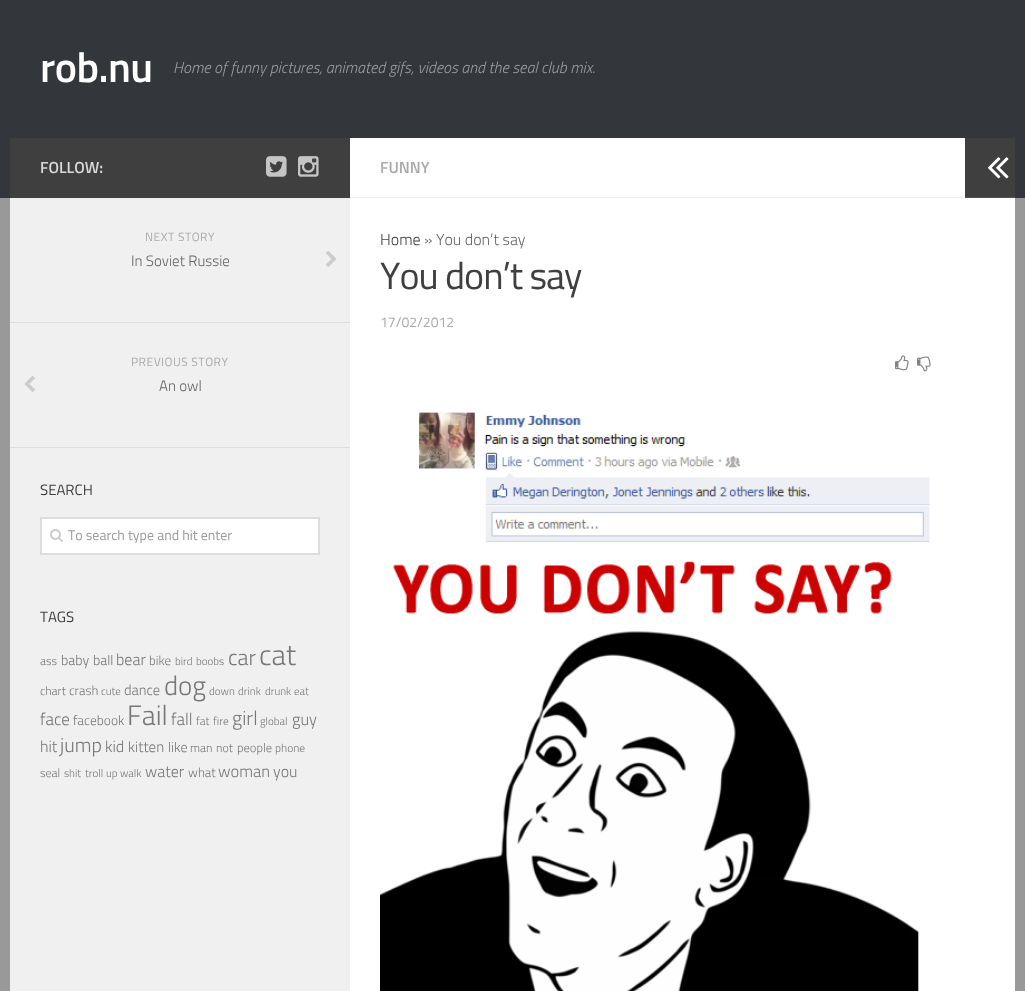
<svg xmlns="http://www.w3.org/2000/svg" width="1025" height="991">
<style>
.a{font:600 42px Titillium;letter-spacing:-0.5px;fill:#fff}
.b{font:italic 300 16px Titillium;fill:#999b9d}
.c{font:600 16px Titillium;fill:#d9d9d9}
.d{font:12px Titillium;letter-spacing:0.5px;fill:#aaa}
.e{font:300 15px Titillium;fill:#666}
.f{font:15px Titillium;fill:#3f3f3f}
.g{font:14px Titillium;fill:#999b9d}
.h{font:300 12px Titillium;fill:#777}
.i{font:300 14px Titillium;fill:#777}
.j{font:300 16px Titillium;fill:#777}
.k{font:300 13px Titillium;fill:#777}
.l{font:300 11px Titillium;fill:#777}
.m{font:300 22px Titillium;fill:#777}
.n{font:300 29px Titillium;fill:#777}
.o{font:300 14.5px Titillium;fill:#777}
.p{font:300 27px Titillium;fill:#777}
.q{font:300 17px Titillium;fill:#777}
.r{font:300 13.5px Titillium;fill:#777}
.s{font:300 28px Titillium;fill:#777}
.t{font:300 11.5px Titillium;fill:#777}
.u{font:300 20px Titillium;fill:#777}
.v{font:300 16.5px Titillium;fill:#777}
.w{font:300 15px Titillium;fill:#777}
.x{font:300 12.5px Titillium;fill:#777}
.y{font:600 16px Titillium;fill:#aaa}
.z{font:300 16px Titillium;fill:#3f3f3f}
.a1{font:300 16px Titillium;fill:#666}
.b1{font:38px Titillium;letter-spacing:-1px;fill:#3f3f3f}
.c1{font:14px Titillium;fill:#aaa}
</style>
<rect width="100%" height="100%" fill="#999"/>
<path fill="#33363b" d="M0 0h1025v198H0z"/>
<path fill="#fff" d="M350 138h665v853H350z"/>
<path fill="#f0f0f0" d="M10 199h340v792H10z"/>
<path fill="#3f3f3f" d="M10 138h340v60H10z"/>
<image href="1.png" x="266" y="156" width="21" height="21"/>
<image href="2.png" x="298" y="156" width="21" height="21"/>
<path fill="#eee" d="M10 198h340v1H10z"/>
<path fill="#ddd" d="M10 322h340v1H10z"/>
<image href="3.png" x="326" y="251" width="11" height="16"/>
<path fill="#ddd" d="M10 447h340v1H10z"/>
<image href="4.png" x="24" y="376" width="11" height="16"/>
<path fill="#fff" stroke="#ddd" stroke-width="2" d="M41 518h278v36H41z"/>
<image href="5.png" x="50" y="529" width="13" height="13"/>
<path fill="#eee" d="M350 197h615v1H350z"/>
<image href="6.png" x="895" y="355" width="14" height="16"/>
<image href="7.png" x="917" y="356" width="14" height="16"/>
<image href="8.png" x="380" y="412" width="550" height="579"/>
<path fill="#3f3f3f" d="M965 138h50v59H965z"/>
<path fill="#525252" d="M965 197h50v1H965z"/>
<image href="9.png" x="988" y="157" width="21" height="22"/>
<text class="a" x="40" y="82">rob.nu</text>
<text class="b" x="173" y="73">Home of funny pictures, animated gifs, videos and the seal club mix.</text>
<text class="c" x="40" y="173">FOLLOW:</text>
<text class="d" x="145" y="241">NEXT STORY</text>
<text class="e" x="131" y="266">In Soviet Russie</text>
<text class="d" x="131" y="366">PREVIOUS STORY</text>
<text class="e" x="159" y="391">An owl</text>
<text class="f" x="40" y="495">SEARCH</text>
<text class="g" x="68" y="540">To search type and hit enter</text>
<text class="f" x="40" y="622">TAGS</text>
<text class="h" x="40" y="665">ass</text>
<text class="i" x="61" y="665">baby</text>
<text class="i" x="93" y="665">ball</text>
<text class="j" x="116" y="665">bear</text>
<text class="k" x="149" y="665">bike</text>
<text class="l" x="175" y="665">bird</text>
<text class="l" x="196" y="665">boobs</text>
<text class="m" x="228" y="665">car</text>
<text class="n" x="259" y="665">cat</text>
<text class="h" x="40" y="695">chart</text>
<text class="k" x="69" y="695">crash</text>
<text class="l" x="101" y="695">cute</text>
<text class="o" x="124" y="695">dance</text>
<text class="p" x="164" y="695">dog</text>
<text class="l" x="209" y="695">down</text>
<text class="l" x="238" y="695">drink</text>
<text class="l" x="265" y="695">drunk</text>
<text class="l" x="294" y="695">eat</text>
<text class="q" x="40" y="725">face</text>
<text class="r" x="73" y="725">facebook</text>
<text class="s" x="127" y="725">Fail</text>
<text class="q" x="171" y="725">fall</text>
<text class="t" x="196" y="725">fat</text>
<text class="t" x="213" y="725">fire</text>
<text class="u" x="232" y="725">girl</text>
<text class="l" x="260" y="725">global</text>
<text class="v" x="292" y="725">guy</text>
<text class="j" x="40" y="752">hit</text>
<text class="u" x="60" y="752">jump</text>
<text class="j" x="105" y="752">kid</text>
<text class="w" x="128" y="752">kitten</text>
<text class="i" x="168" y="752">like</text>
<text class="h" x="190" y="752">man</text>
<text class="h" x="216" y="752">not</text>
<text class="x" x="237" y="752">people</text>
<text class="t" x="275" y="752">phone</text>
<text class="h" x="40" y="777">seal</text>
<text class="l" x="64" y="777">shit</text>
<text class="l" x="85" y="777">troll</text>
<text class="l" x="106" y="777">up</text>
<text class="l" x="120" y="777">walk</text>
<text class="j" x="145" y="777">water</text>
<text class="k" x="188" y="777">what</text>
<text class="v" x="218" y="777">woman</text>
<text class="j" x="273" y="777">you</text>
<text class="y" x="380" y="173">FUNNY</text>
<text class="z" x="380" y="245">Home</text>
<text class="a1" x="424" y="245">» You don’t say</text>
<text class="b1" x="380" y="289">You don’t say</text>
<text class="c1" x="380" y="327">17/02/2012</text>
</svg>
